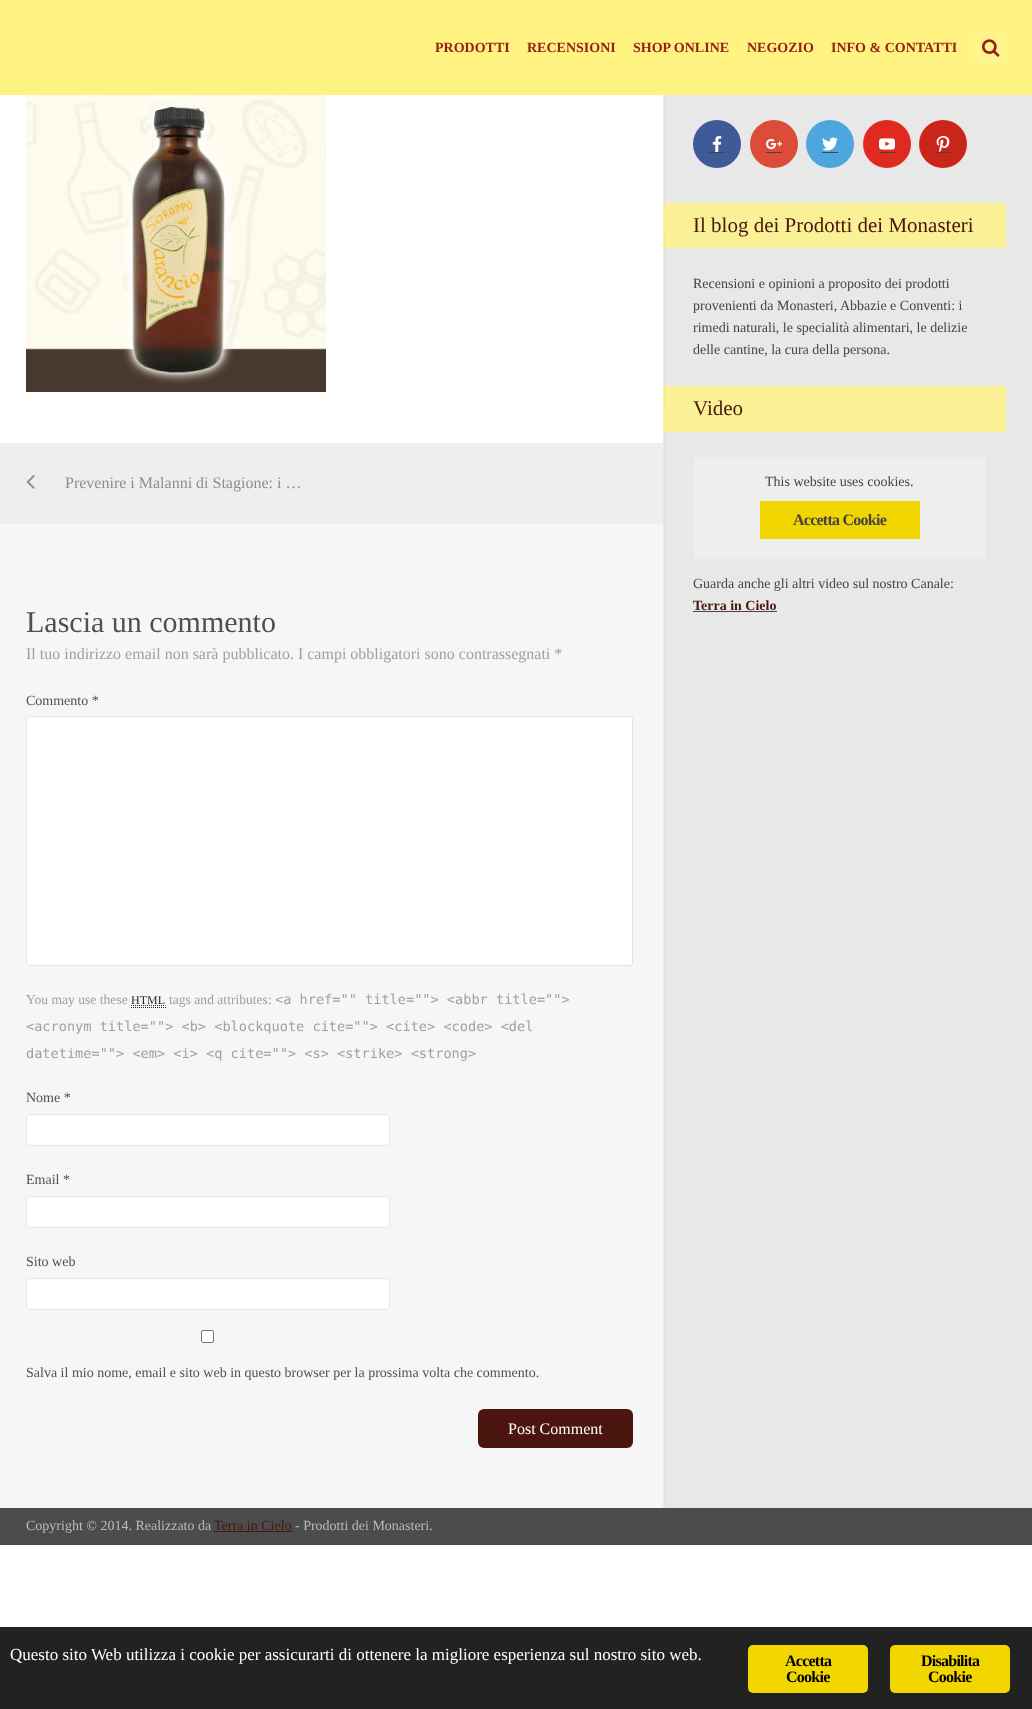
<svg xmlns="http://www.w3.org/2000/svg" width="1032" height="1709">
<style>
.a{font:bold 14px Liberation Serif;fill:#962014}
.b{font:21px Liberation Serif;fill:#4a150f}
.c{font:14px Liberation Serif;fill:#454343}
.d{font:bold 16px Liberation Serif;letter-spacing:-0.75px;fill:#454343}
.e{font:bold 14px Liberation Serif;fill:#4a150f}
.f{font:16px Liberation Serif;fill:#8e8e8e}
.g{font:30px Liberation Serif;fill:#505050}
.h{font:16px Liberation Serif;fill:#a0a0a0}
.i{font:14px Liberation Serif;fill:#505050}
.j{font:13.6px Liberation Serif;fill:#a0a0a0}
.k{font:12px Liberation Serif;fill:#282525}
.l{font:13.6px DejaVu Sans Mono;fill:#a0a0a0}
.m{font:16px Liberation Serif;fill:#fff}
.n{font:14px Liberation Serif;fill:#bbb}
.o{font:14px Liberation Serif;fill:#4a150f}
.p{font:17px Liberation Serif;fill:#fff}
.q{font:bold 16px Liberation Serif;letter-spacing:-0.75px;fill:#000}
</style>
<rect width="100%" height="100%" fill="#fff"/>
<path fill="#fff381" d="M0 0h1032v95H0z"/>
<rect fill="#fff48e" x="974" y="32" width="32" height="32" rx="3"/>
<image href="1.png" x="982" y="39" width="18" height="18"/>
<path fill="#e8e8e8" d="M663 95h369v1413H663z"/>
<circle fill="#3e5b98" cx="717" cy="144" r="24"/>
<path fill="#454343" d="M709 152h16v1H709z"/>
<image href="2.png" x="712" y="136" width="10" height="16"/>
<circle fill="#dd4b39" cx="774" cy="144" r="24"/>
<path fill="#454343" d="M766 152h16v1H766z"/>
<image href="3.png" x="766" y="138" width="16" height="12"/>
<circle fill="#4da7de" cx="830" cy="144" r="24"/>
<path fill="#454343" d="M822 152h16v1H822z"/>
<image href="4.png" x="822" y="137" width="16" height="14"/>
<circle fill="#e02a20" cx="887" cy="144" r="24"/>
<path fill="#454343" d="M879 152h16v1H879z"/>
<image href="5.png" x="879" y="138" width="16" height="12"/>
<circle fill="#c92619" cx="943" cy="144" r="24"/>
<path fill="#454343" d="M935 152h16v1H935z"/>
<image href="6.png" x="936" y="136" width="14" height="16"/>
<path fill="#faf196" d="M663 203h343v45H663z"/>
<path fill="#faf196" d="M663 386h343v46H663z"/>
<path fill="#eee" d="M693 457h293v102H693z"/>
<path fill="#f1d600" d="M760 501h160v38H760z"/>
<path fill="#454343" d="M693 611h84v1H693z"/>
<image href="7.png" x="26" y="95" width="300" height="297"/>
<image href="8.png" x="664" y="95" width="1" height="1413"/>
<path fill="#eee" d="M0 443h663v81H0z"/>
<image href="9.png" x="26" y="475" width="9" height="14"/>
<path fill="#f6f6f6" d="M0 524h663v984H0z"/>
<rect fill="#fff" stroke="#e4e4e4" x="26.5" y="716.5" width="606" height="249" rx="2.5"/>
<path fill="none" stroke="#282525" stroke-dasharray="1 1" d="M131 1007.5h35m-35-2h34.5"/>
<rect fill="#fff" stroke="#e4e4e4" x="26.5" y="1114.5" width="363" height="31" rx="2.5"/>
<rect fill="#fff" stroke="#e4e4e4" x="26.5" y="1196.5" width="363" height="31" rx="2.5"/>
<rect fill="#fff" stroke="#e4e4e4" x="26.5" y="1278.5" width="363" height="31" rx="2.5"/>
<rect fill="#fff" stroke="#767676" x="201.5" y="1330.5" width="12" height="12" rx="1.5"/>
<rect fill="#4a150f" x="478" y="1409" width="155" height="39" rx="6"/>
<path fill="#4c4b4d" d="M0 1508h1032v37H0z"/>
<path fill="#4a150f" d="M214 1531h78v1H214z"/>
<path fill="#222" d="M0 1627h1032v82H0z"/>
<rect fill="#f1d600" x="748" y="1645" width="120" height="48" rx="5"/>
<rect fill="#f1d600" x="890" y="1645" width="120" height="48" rx="5"/>
<text class="a" x="435" y="52">PRODOTTI</text>
<text class="a" x="527" y="52">RECENSIONI</text>
<text class="a" x="633" y="52">SHOP ONLINE</text>
<text class="a" x="747" y="52">NEGOZIO</text>
<text class="a" x="831" y="52">INFO &amp; CONTATTI</text>
<text class="b" x="693" y="232">Il blog dei Prodotti dei Monasteri</text>
<text class="c" x="693" y="288">Recensioni e opinioni a proposito dei prodotti</text>
<text class="c" x="693" y="310">provenienti da Monasteri, Abbazie e Conventi: i</text>
<text class="c" x="693" y="332">rimedi naturali, le specialità alimentari, le delizie</text>
<text class="c" x="693" y="354">delle cantine, la cura della persona.</text>
<text class="b" x="693" y="415">Video</text>
<text class="c" x="765" y="486">This website uses cookies.</text>
<text class="d" x="793" y="525">Accetta Cookie</text>
<text class="c" x="693" y="588">Guarda anche gli altri video sul nostro Canale:</text>
<text class="e" x="693" y="610">Terra in Cielo</text>
<text class="f" x="65" y="488">Prevenire i Malanni di Stagione: i …</text>
<text class="g" x="26" y="632">Lascia un commento</text>
<text class="h" x="26" y="659">Il tuo indirizzo email non sarà pubblicato. I campi obbligatori sono contrassegnati *</text>
<text class="i" x="26" y="705">Commento *</text>
<text class="j" x="26" y="1004">You may use these</text>
<text class="k" x="131" y="1004">HTML</text>
<text class="j" x="169" y="1004">tags and attributes:</text>
<text class="l" x="275" y="1004">&lt;a href="" title=""&gt; &lt;abbr title=""&gt;</text>
<text class="l" x="26" y="1031">&lt;acronym title=""&gt; &lt;b&gt; &lt;blockquote cite=""&gt; &lt;cite&gt; &lt;code&gt; &lt;del</text>
<text class="l" x="26" y="1058">datetime=""&gt; &lt;em&gt; &lt;i&gt; &lt;q cite=""&gt; &lt;s&gt; &lt;strike&gt; &lt;strong&gt;</text>
<text class="i" x="26" y="1102">Nome *</text>
<text class="i" x="26" y="1184">Email *</text>
<text class="i" x="26" y="1266">Sito web</text>
<text class="i" x="26" y="1377">Salva il mio nome, email e sito web in questo browser per la prossima volta che commento.</text>
<text class="m" x="508" y="1434">Post Comment</text>
<text class="n" x="26" y="1530">Copyright © 2014. Realizzato da</text>
<text class="o" x="214" y="1530">Terra in Cielo</text>
<text class="n" x="295" y="1530">- Prodotti dei Monasteri.</text>
<text class="p" x="10" y="1660">Questo sito Web utilizza i cookie per assicurarti di ottenere la migliore esperienza sul nostro sito web.</text>
<text class="q" x="785" y="1666">Accetta</text>
<text class="q" x="786" y="1682">Cookie</text>
<text class="q" x="921" y="1666">Disabilita</text>
<text class="q" x="928" y="1682">Cookie</text>
</svg>
